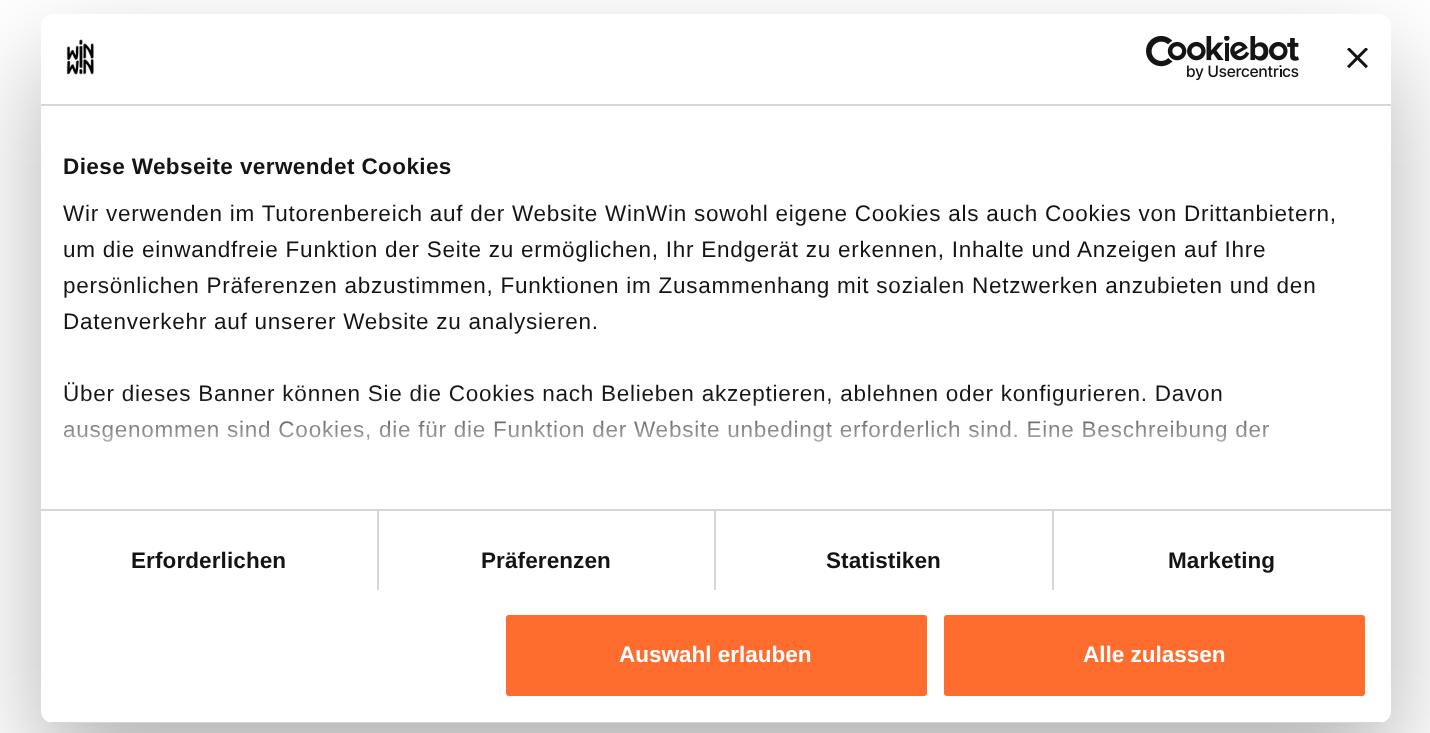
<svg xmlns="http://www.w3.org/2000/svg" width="1430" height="733">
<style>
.a{font:bold 22.5px Liberation Sans;letter-spacing:0.4px;fill:#141414}
.b{font:22.5px Liberation Sans;letter-spacing:0.75px;fill:#141414}
.c{font:bold 22.5px Liberation Sans;letter-spacing:0.1px;fill:#141414}
.d{font:bold 22.5px Liberation Sans;fill:#fff}
</style>
<defs>
<clipPath id="clip1"><rect x="41" y="14" width="1350" height="709" rx="12"/></clipPath>
<linearGradient id="g1" gradientUnits="userSpaceOnUse" x1="706" y1="508" x2="706" y2="395"><stop offset="0" stop-color="#fff"/><stop offset="0.5" stop-color="#fff" stop-opacity="0.8"/><stop offset="1" stop-color="#fff" stop-opacity="0"/></linearGradient>
</defs>
<rect width="100%" height="100%" fill="#fff"/>
<rect fill="#0000004d" filter="blur(51px)" x="41" y="62" width="1350" height="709" rx="12"/>
<rect fill="#fff" x="41" y="14" width="1350" height="709" rx="12"/>
<path fill="#d6d6d6" d="M41 104h1350v2H41z"/>
<image href="1.png" x="66" y="39" width="28" height="36"/>
<image href="2.png" x="1146" y="36" width="153" height="45"/>
<image href="3.png" x="1347" y="48" width="21" height="21"/>
<path fill="#d6d6d6" d="M377 510h2v80H377z"/>
<path fill="#d6d6d6" d="M714 510h2v80H714z"/>
<path fill="#d6d6d6" d="M1052 510h2v80H1052z"/>
<path fill="#d6d6d6" d="M41 509h1350v2H41z"/>
<g clip-path="url(#clip1)">
<path fill="#d6d6d6" d="M41 722h1350v1H41z"/>
</g>
<rect fill="#ff6d2e" stroke="#fff" stroke-width="3" x="504.5" y="613.5" width="424" height="84" rx="4.5"/>
<rect fill="#ff6d2e" stroke="#fff" stroke-width="3" x="942.5" y="613.5" width="424" height="84" rx="4.5"/>
<text class="a" x="63" y="174">Diese Webseite verwendet Cookies</text>
<text class="b" x="63" y="221">Wir verwenden im Tutorenbereich auf der Website WinWin sowohl eigene Cookies als auch Cookies von Drittanbietern,</text>
<text class="b" x="63" y="257">um die einwandfreie Funktion der Seite zu ermöglichen, Ihr Endgerät zu erkennen, Inhalte und Anzeigen auf Ihre</text>
<text class="b" x="63" y="293">persönlichen Präferenzen abzustimmen, Funktionen im Zusammenhang mit sozialen Netzwerken anzubieten und den</text>
<text class="b" x="63" y="329">Datenverkehr auf unserer Website zu analysieren.</text>
<text class="b" x="63" y="401">Über dieses Banner können Sie die Cookies nach Belieben akzeptieren, ablehnen oder konfigurieren. Davon</text>
<text class="b" x="63" y="437">ausgenommen sind Cookies, die für die Funktion der Website unbedingt erforderlich sind. Eine Beschreibung der</text>
<path fill="url(#g1)" d="M64 397h1205v45H64z"/>
<text class="c" x="131" y="568">Erforderlichen</text>
<text class="c" x="481" y="568">Präferenzen</text>
<text class="c" x="826" y="568">Statistiken</text>
<text class="c" x="1168" y="568">Marketing</text>
<text class="d" x="619" y="662">Auswahl erlauben</text>
<text class="d" x="1083" y="662">Alle zulassen</text>
</svg>
